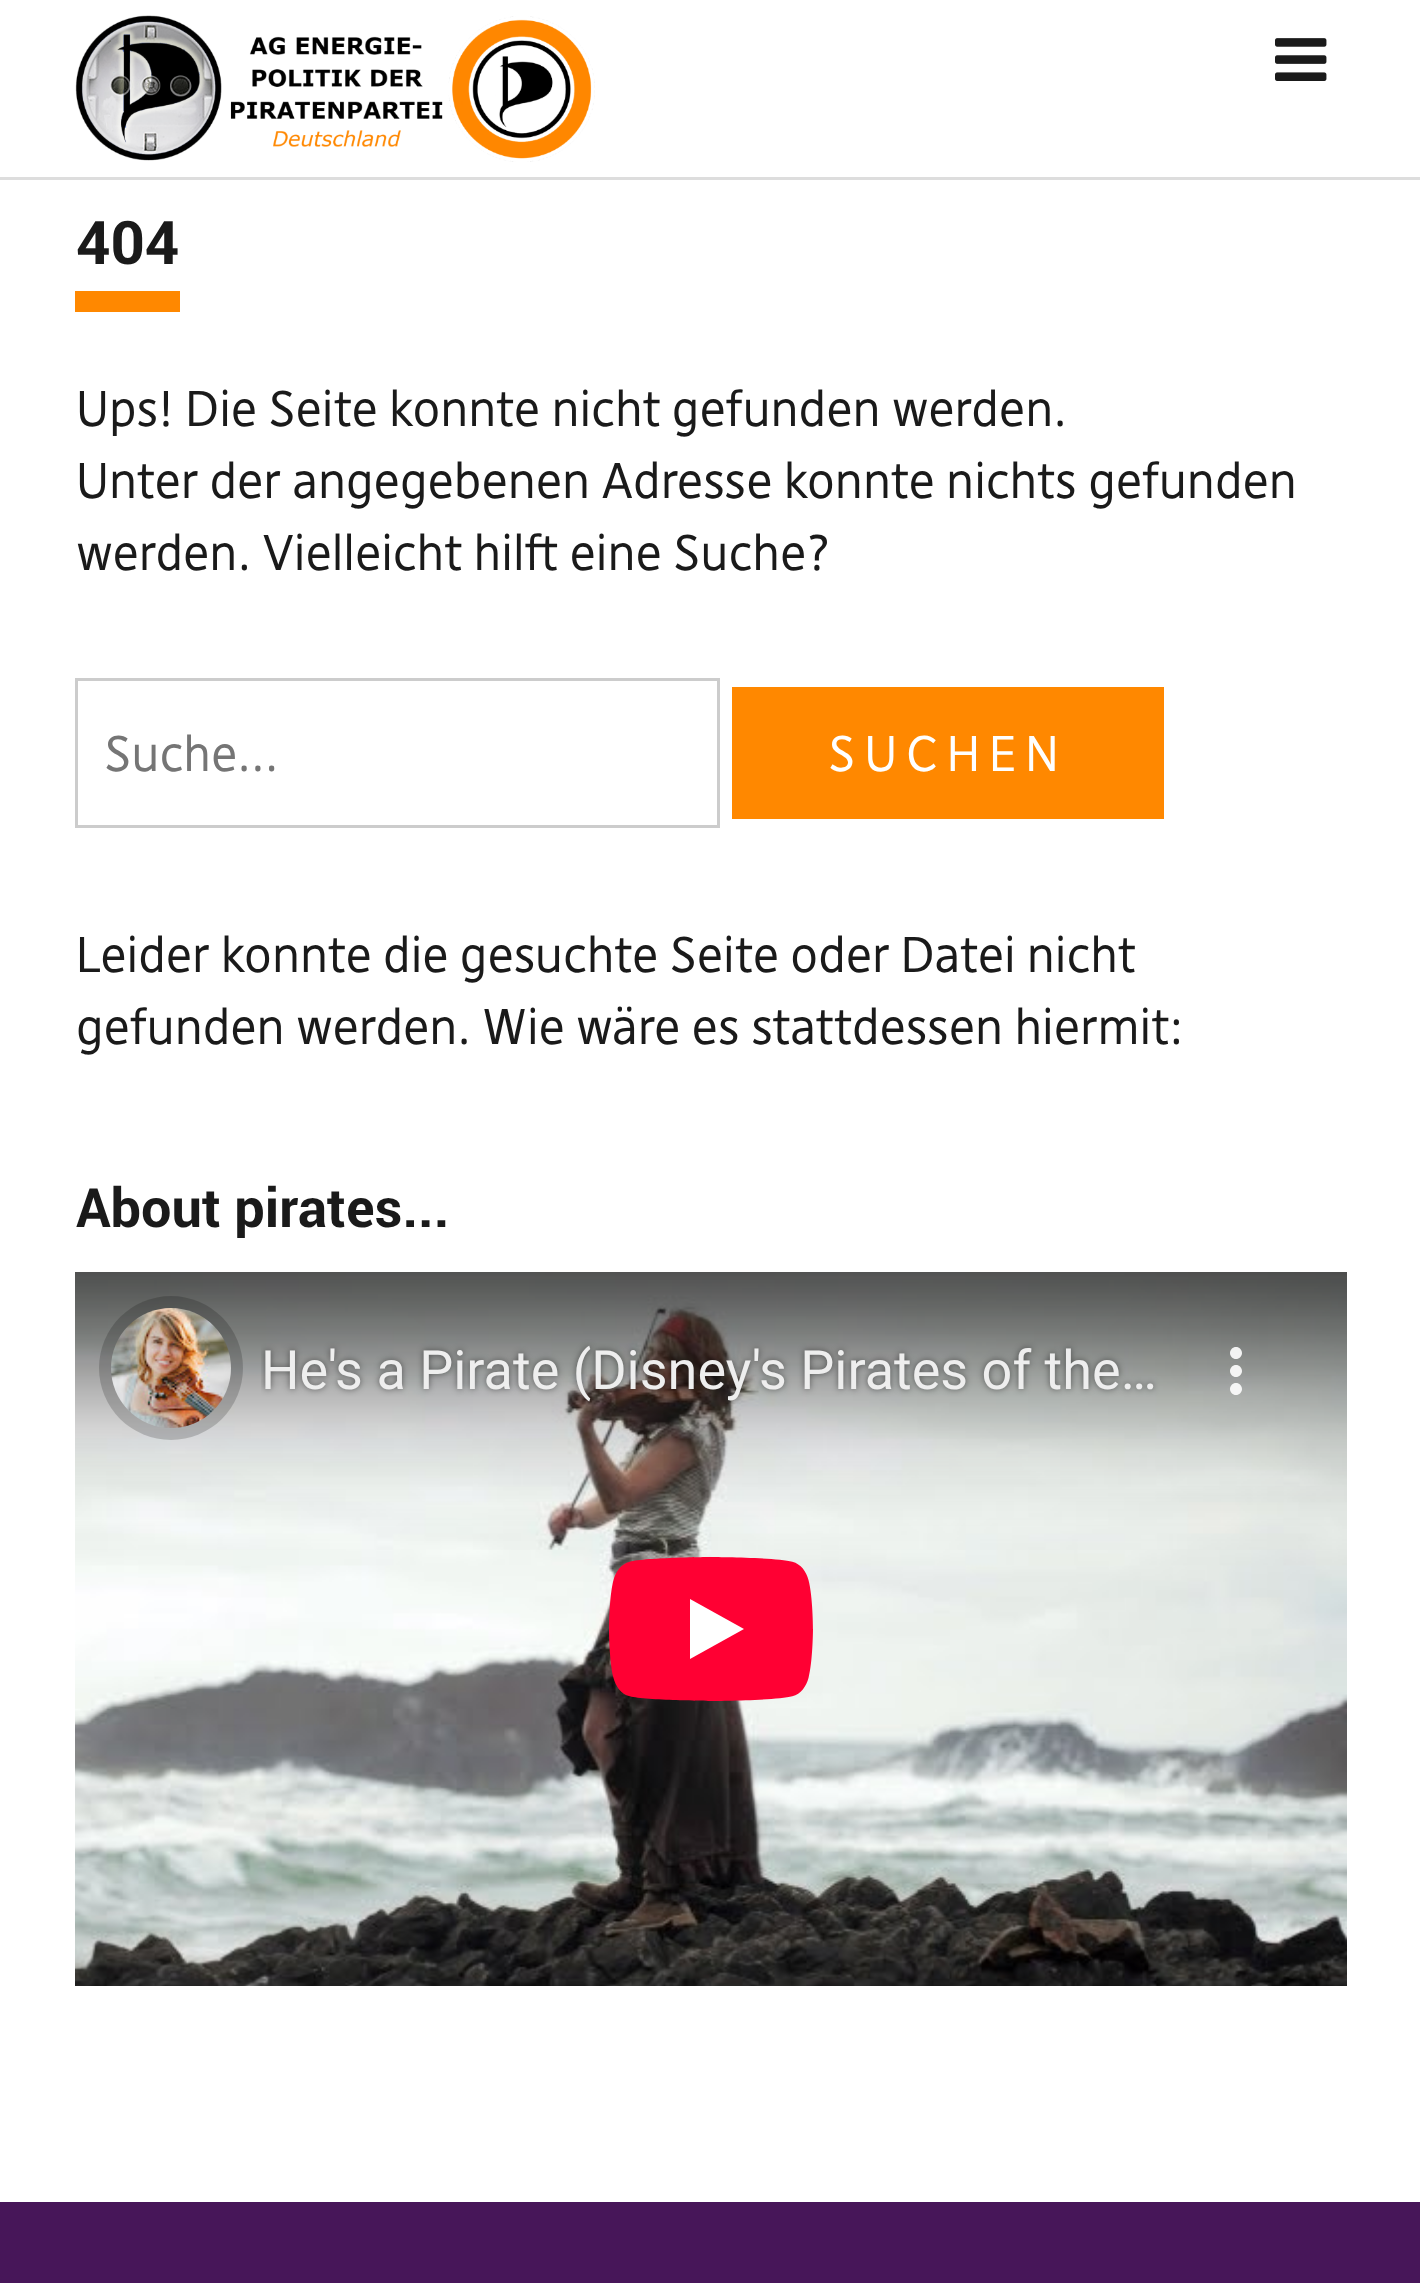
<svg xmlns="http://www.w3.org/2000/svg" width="1420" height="2283">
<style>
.a{font:bold 60px roboto;fill:#1a1a1a}
.b{font:48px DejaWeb;fill:#1a1a1a}
.c{font:48px DejaWeb;fill:#757575}
.d{font:48px DejaWeb;letter-spacing:9px;fill:#fff}
.e{font:bold 54px roboto;fill:#1a1a1a}
</style>
<rect width="100%" height="100%" fill="#fff"/>
<path fill="#ddd" d="M0 177h1420v3H0z"/>
<image href="1.png" x="75" y="15" width="520" height="147"/>
<image href="2.png" x="1275" y="38" width="52" height="43"/>
<path fill="#f80" d="M75 291h105v21H75z"/>
<path fill="none" stroke="#ccc" stroke-width="3" d="M76.5 679.5h642v147H76.5z"/>
<path fill="#f80" d="M732 687h432v132H732z"/>
<image href="3.png" x="75" y="1272" width="1272" height="714"/>
<path fill="#471659" d="M0 2202h1420v81H0z"/>
<text class="a" x="76" y="264">404</text>
<text class="b" x="76" y="426">Ups! Die Seite konnte nicht gefunden werden.</text>
<text class="b" x="76" y="498">Unter der angegebenen Adresse konnte nichts gefunden</text>
<text class="b" x="76" y="570">werden. Vielleicht hilft eine Suche?</text>
<text class="c" x="104" y="771">Suche...</text>
<text class="d" x="828" y="771">SUCHEN</text>
<text class="b" x="76" y="972">Leider konnte die gesuchte Seite oder Datei nicht</text>
<text class="b" x="76" y="1044">gefunden werden. Wie wäre es stattdessen hiermit:</text>
<text class="e" x="76" y="1227">About pirates...</text>
</svg>
